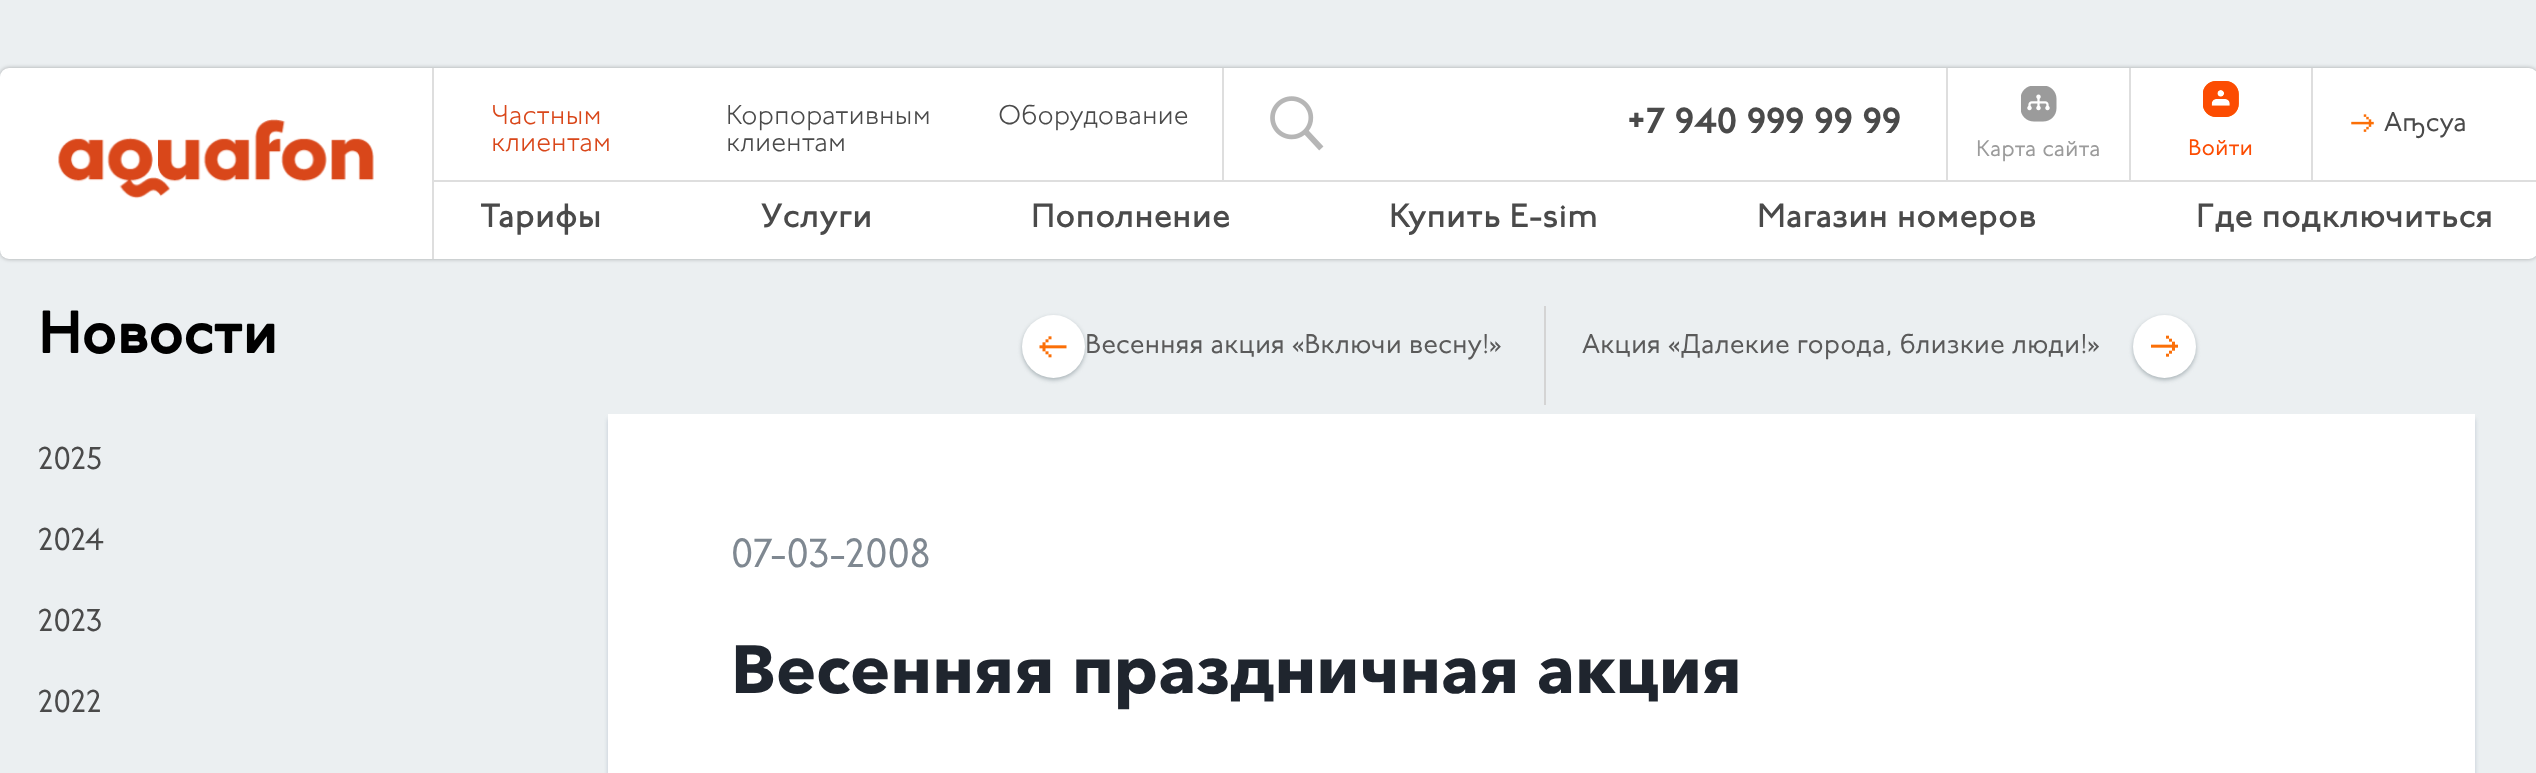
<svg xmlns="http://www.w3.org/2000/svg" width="2536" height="773">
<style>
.a{font:300 27px 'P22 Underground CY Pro';fill:#d9471a}
.b{font:300 27px 'P22 Underground CY Pro';fill:#4a4a4a}
.c{font:36px 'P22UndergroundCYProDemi';fill:#4a4a4a}
.d{font:27px 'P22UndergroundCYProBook';fill:#4a4a4a}
.e{font:22.5px 'P22UndergroundCYProBook';fill:#9b9b9b}
.f{font:22.5px 'P22UndergroundCYProBook';fill:#fc4c02}
.g{font:500 33.75px 'P22 Underground CY Pro';fill:#4a4a4a}
.h{font:bold 58.5px 'P22 Underground CY Pro';fill:#000}
.i{font:31.5px 'P22UndergroundCYProBook';fill:#4a4a4a}
.j{font:27px 'P22UndergroundCYProBook';fill:#5a5a5a}
.k{font:40.5px 'P22UndergroundCYProBook';fill:#7f8891}
.l{font:bold 67.5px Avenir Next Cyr;fill:#1f252e}
</style>
<rect width="100%" height="100%" fill="#ebeff1"/>
<rect fill="#0000004d" filter="blur(2px)" y="68" width="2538" height="191" rx="9"/>
<rect fill="#fff" y="68" width="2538" height="191" rx="9"/>
<path fill="#dedede" d="M432 68h2v191H432z"/>
<image href="1.png" x="58" y="119" width="316" height="80"/>
<path fill="#dedede" d="M1222 68h2v112H1222z"/>
<image href="2.png" x="1270" y="96" width="54" height="55"/>
<path fill="#dedede" d="M2311 68h2v112H2311z"/>
<image href="3.png" x="2351" y="114" width="23" height="18"/>
<path fill="#dedede" d="M1946 68h2v112H1946z"/>
<image href="4.png" x="2021" y="86" width="36" height="36"/>
<path fill="#dedede" d="M2129 68h2v112H2129z"/>
<image href="5.png" x="2203" y="81" width="36" height="36"/>
<path fill="#dedede" d="M434 180h2102v2H434z"/>
<rect fill="#a9b3b7" filter="blur(2px)" x="1022" y="317" width="63" height="63" rx="31.5"/>
<circle fill="#fff" cx="1053.5" cy="346.5" r="31.5"/>
<image href="6.png" x="1039" y="336" width="28" height="22"/>
<path fill="#d4d4d4" d="M1544 306h2v99H1544z"/>
<rect fill="#a9b3b7" filter="blur(2px)" x="2133" y="317" width="63" height="63" rx="31.5"/>
<circle fill="#fff" cx="2164.5" cy="346.5" r="31.5"/>
<image href="7.png" x="2151" y="335" width="27" height="22"/>
<path fill="#788ea461" filter="blur(2px)" d="M608 419h1867v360H608z"/>
<path fill="#fff" d="M608 414h1867v359H608z"/>
<text class="a" x="491" y="124">Частным</text>
<text class="a" x="491" y="151">клиентам</text>
<text class="b" x="726" y="124">Корпоративным</text>
<text class="b" x="726" y="151">клиентам</text>
<text class="b" x="998" y="124">Оборудование</text>
<text class="c" x="1627" y="133">+7 940 999 99 99</text>
<text class="d" x="2384" y="131">Аҧсуа</text>
<text class="e" x="1976" y="156">Карта сайта</text>
<text class="f" x="2188" y="155">Войти</text>
<text class="g" x="480" y="227">Тарифы</text>
<text class="g" x="761" y="227">Услуги</text>
<text class="g" x="1031" y="227">Пополнение</text>
<text class="g" x="1389" y="227">Купить E-sim</text>
<text class="g" x="1757" y="227">Магазин номеров</text>
<text class="g" x="2196" y="227">Где подключиться</text>
<text class="h" x="38" y="353">Новости</text>
<text class="i" x="38" y="469">2025</text>
<text class="i" x="38" y="550">2024</text>
<text class="i" x="38" y="631">2023</text>
<text class="i" x="38" y="712">2022</text>
<text class="j" x="1085" y="353">Весенняя акция «Включи весну!»</text>
<text class="j" x="1582" y="353">Акция «Далекие города, близкие люди!»</text>
<text class="k" x="731" y="567">07-03-2008</text>
<text class="l" x="731" y="693">Весенняя праздничная акция</text>
</svg>
